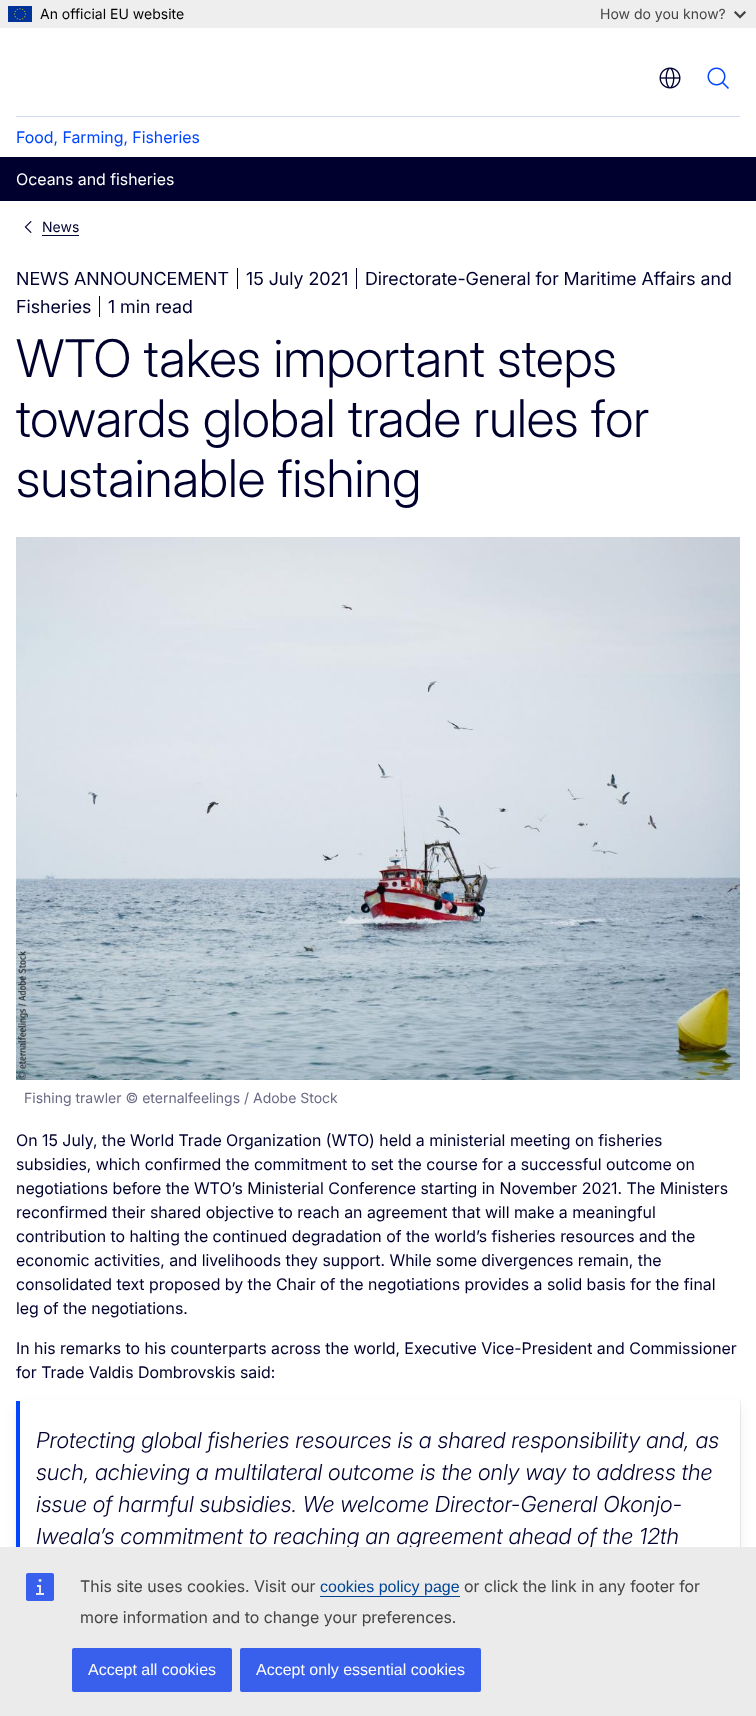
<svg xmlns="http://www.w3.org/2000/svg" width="756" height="1716">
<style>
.a{font:14px 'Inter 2';fill:#000}
.b{font:14px 'Inter 2';fill:#444}
.c{font:16px 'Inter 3';fill:#0046ff}
.d{font:16px 'Inter 3';fill:#fff}
.e{font:14px 'Inter 2';fill:#00002e}
.f{font:18px Inter;fill:#00002e}
.g{font:300 52px Inter;fill:#00002e}
.h{font:14px 'Inter 2';fill:#696984}
.i{font:16px 'Inter 3';fill:#00002e}
.j{font:italic 300 22px Inter;fill:#00002e}
.k{font:16px 'Inter 3';fill:#444}
.l{font:16px Liberation Sans;fill:#004494}
.m{font:16px Liberation Sans;fill:#fff}
</style>
<rect width="100%" height="100%" fill="#fff"/>
<path fill="#eee" d="M0 0h756v28H0z"/>
<image href="1.png" x="8" y="6" width="24" height="16"/>
<image href="2.png" x="734" y="11" width="12" height="8"/>
<image href="3.png" x="659" y="67" width="22" height="22"/>
<image href="4.png" x="707" y="67" width="22" height="22"/>
<path fill="#d1d9f1" d="M16 116h724v1H16z"/>
<path fill="#00002e" d="M0 157h756v44H0z"/>
<image href="5.png" x="24" y="221" width="8" height="12"/>
<path fill="#00002e" d="M42 235h37v1H42z"/>
<path fill="#00002e" d="M237 268h1v21H237z"/>
<path fill="#00002e" d="M356 268h1v21H356z"/>
<path fill="#00002e" d="M99 296h1v21H99z"/>
<image href="6.png" x="16" y="537" width="724" height="543"/>
<rect fill="#18274b14" filter="blur(6px)" x="16" y="1406" width="724" height="276" rx="2"/>
<rect fill="#18274b14" filter="blur(0.5px)" x="16" y="1400" width="725" height="277" rx="2.5"/>
<rect fill="#fff" x="16" y="1400" width="724" height="276" rx="2"/>
<path fill="#0046ff" d="M16 1401h4v146H16z"/>
<text class="a" x="40" y="19">An official EU website</text>
<text class="b" x="600" y="19">How do you know?</text>
<text class="c" x="16" y="143">Food, Farming, Fisheries</text>
<text class="d" x="16" y="185">Oceans and fisheries</text>
<text class="e" x="42" y="232">News</text>
<text class="f" x="16" y="285">NEWS ANNOUNCEMENT</text>
<text class="f" x="246" y="285">15 July 2021</text>
<text class="f" x="365" y="285">Directorate-General for Maritime Affairs and</text>
<text class="f" x="16" y="313">Fisheries</text>
<text class="f" x="108" y="313">1 min read</text>
<text class="g" x="16" y="377">WTO takes important steps</text>
<text class="g" x="16" y="437">towards global trade rules for</text>
<text class="g" x="16" y="497">sustainable fishing</text>
<text class="h" x="24" y="1103">Fishing trawler © eternalfeelings / Adobe Stock</text>
<text class="i" x="16" y="1146">On 15 July, the World Trade Organization (WTO) held a ministerial meeting on fisheries</text>
<text class="i" x="16" y="1170">subsidies, which confirmed the commitment to set the course for a successful outcome on</text>
<text class="i" x="16" y="1194">negotiations before the WTO’s Ministerial Conference starting in November 2021. The Ministers</text>
<text class="i" x="16" y="1218">reconfirmed their shared objective to reach an agreement that will make a meaningful</text>
<text class="i" x="16" y="1242">contribution to halting the continued degradation of the world’s fisheries resources and the</text>
<text class="i" x="16" y="1266">economic activities, and livelihoods they support. While some divergences remain, the</text>
<text class="i" x="16" y="1290">consolidated text proposed by the Chair of the negotiations provides a solid basis for the final</text>
<text class="i" x="16" y="1314">leg of the negotiations.</text>
<text class="i" x="16" y="1354">In his remarks to his counterparts across the world, Executive Vice-President and Commissioner</text>
<text class="i" x="16" y="1378">for Trade Valdis Dombrovskis said:</text>
<text class="j" x="36" y="1448">Protecting global fisheries resources is a shared responsibility and, as</text>
<text class="j" x="36" y="1480">such, achieving a multilateral outcome is the only way to address the</text>
<text class="j" x="36" y="1512">issue of harmful subsidies. We welcome Director-General Okonjo-</text>
<text class="j" x="36" y="1544">Iweala’s commitment to reaching an agreement ahead of the 12th</text>
<path fill="#ebebeb" d="M0 1547h756v169H0z"/>
<image href="7.png" x="26" y="1573" width="28" height="28"/>
<text class="k" x="80" y="1592">This site uses cookies. Visit our</text>
<text class="l" x="320" y="1592">cookies policy page</text>
<path fill="#004494" d="M320 1596h140v1H320z"/>
<text class="k" x="464" y="1592">or click the link in any footer for</text>
<text class="k" x="80" y="1623">more information and to change your preferences.</text>
<rect fill="#3860ed" x="72" y="1648" width="160" height="44" rx="2"/>
<text class="m" x="88" y="1675">Accept all cookies</text>
<rect fill="#3860ed" x="240" y="1648" width="241" height="44" rx="2"/>
<text class="m" x="256" y="1675">Accept only essential cookies</text>
</svg>
